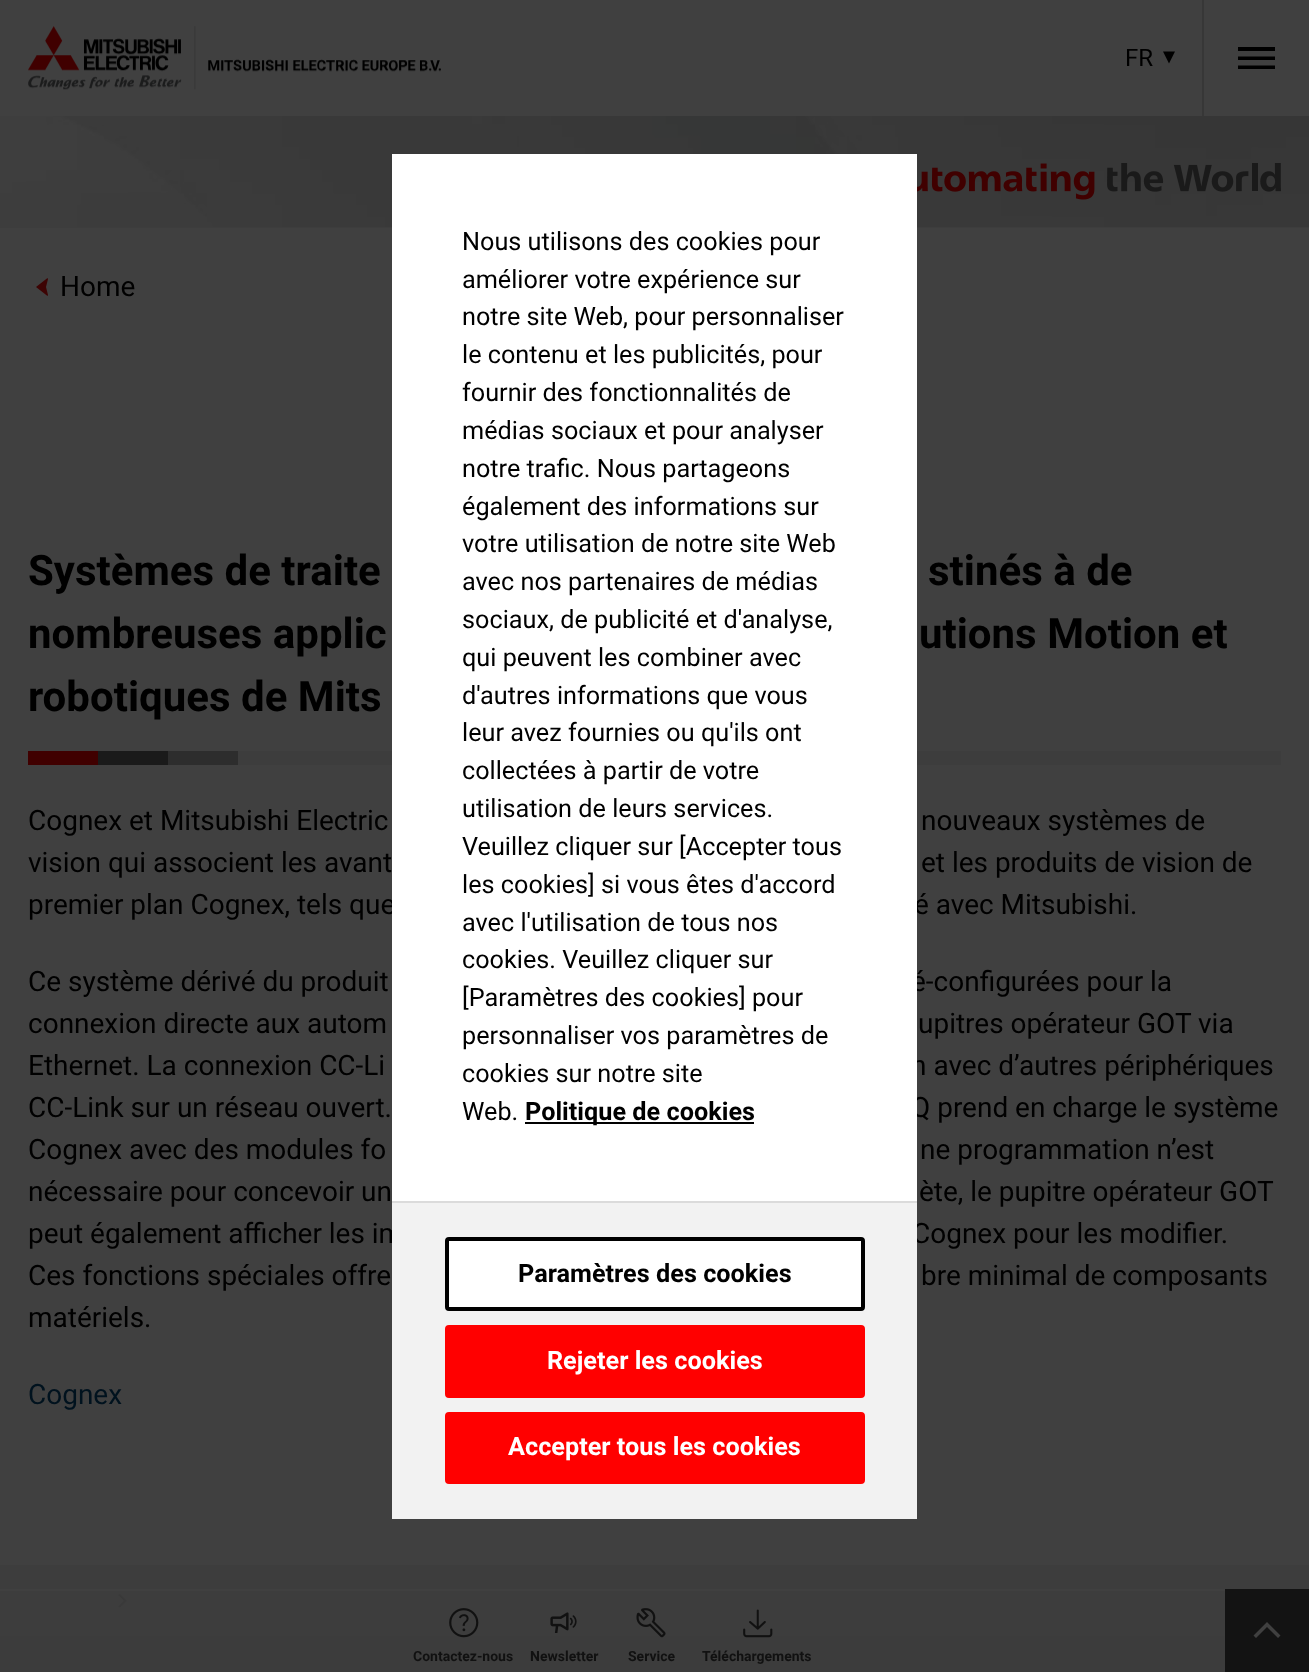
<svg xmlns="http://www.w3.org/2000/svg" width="1309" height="1672">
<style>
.a{font:24px Roboto;fill:#000}
.b{font:28px Roboto;fill:#000}
.c{font:bold 42px Roboto;fill:#000}
.d{font:28px Roboto;fill:#00121e}
.e{font:bold 14px Roboto;fill:#111}
.f{font:25.25px Roboto;fill:#000}
.g{font:bold 25.25px Roboto;fill:#000}
.h{font:bold 25.25px Roboto;fill:#fff}
</style>
<rect width="100%" height="100%" fill="#404040"/>
<image href="1.png" x="28" y="26" width="413" height="64"/>
<path fill="#000" d="M1169 63.5l-6-12h12z"/>
<path fill="#373737" d="M1202 0h2v116H1202z"/>
<path fill="#000" d="M1238 60v-3.5h37v3.5zm0 9v-3.5h37v3.5zm0-18v-4h37v4z"/>
<path fill="#3d3d3d" d="M0 227h1309v1H0z"/>
<image href="2.png" x="0" y="116" width="1309" height="111"/>
<image href="3.png" x="917" y="163" width="364" height="37"/>
<path fill="#3d0404" d="M36 287l11.5 9l.5-1l-2-8l2-8l-.5-1z"/>
<path fill="#3d3d3d" d="M238 751h1043v14H238z"/>
<path fill="#400000" d="M28 751h70v14H28z"/>
<path fill="#1a1a1a" d="M98 751h70v14H98z"/>
<path fill="#2d2d2d" d="M168 751h70v14H168z"/>
<path fill="#3d3d3d" d="M0 1591h1225v45H0z"/>
<path fill="#3c3c3c" d="M0 1636h1225v36H0z"/>
<image href="4.png" x="449" y="1608" width="30" height="30"/>
<image href="5.png" x="550" y="1612" width="27" height="21"/>
<image href="6.png" x="636" y="1608" width="30" height="30"/>
<image href="7.png" x="743" y="1609" width="30" height="29"/>
<path fill="#131313" d="M1225 1589h84v83H1225z"/>
<path fill="#404040" d="M1278 1638l2.5-2.5l-13.5-13.5l-13.5 13.5l2.5 2.5l11-11z"/>
<path fill="#3d3d3d" d="M0 1565h1309v24H0z"/>
<image href="8.png" x="118" y="1594" width="9" height="14"/>
<path fill="#dbdbdb" d="M392 1201h525v2H392z"/>
<text class="a" x="1125" y="66">FR</text>
<text class="b" x="60" y="296">Home</text>
<text class="c" x="28" y="585">Systèmes de traite</text>
<text class="c" x="928" y="585">stinés à de</text>
<text class="c" x="28" y="648">nombreuses applic</text>
<text class="c" x="919" y="648">utions Motion et</text>
<text class="c" x="28" y="711">robotiques de Mits</text>
<text class="b" x="28" y="830">Cognex et Mitsubishi Electric</text>
<text class="b" x="921" y="830">nouveaux systèmes de</text>
<text class="b" x="28" y="872">vision qui associent les avant</text>
<text class="b" x="921" y="872">et les produits de vision de</text>
<text class="b" x="28" y="914">premier plan Cognex, tels que</text>
<text class="b" x="914" y="914">é avec Mitsubishi.</text>
<text class="b" x="28" y="991">Ce système dérivé du produit</text>
<text class="b" x="911" y="991">é-configurées pour la</text>
<text class="b" x="28" y="1033">connexion directe aux autom</text>
<text class="b" x="918" y="1033">upitres opérateur GOT via</text>
<text class="b" x="28" y="1075">Ethernet. La connexion CC-Li</text>
<text class="b" x="911" y="1075">n avec d’autres périphériques</text>
<text class="b" x="28" y="1117">CC-Link sur un réseau ouvert.</text>
<text class="b" x="911" y="1117">Q prend en charge le système</text>
<text class="b" x="28" y="1159">Cognex avec des modules fo</text>
<text class="b" x="920" y="1159">ne programmation n’est</text>
<text class="b" x="28" y="1201">nécessaire pour concevoir un</text>
<text class="b" x="919" y="1201">ète, le pupitre opérateur GOT</text>
<text class="b" x="28" y="1243">peut également afficher les im</text>
<text class="b" x="912" y="1243">Cognex pour les modifier.</text>
<text class="b" x="28" y="1285">Ces fonctions spéciales offre</text>
<text class="b" x="921" y="1285">bre minimal de composants</text>
<text class="b" x="28" y="1327">matériels.</text>
<text class="d" x="28" y="1404">Cognex</text>
<text class="e" x="413" y="1661">Contactez-nous</text>
<text class="e" x="530" y="1661">Newsletter</text>
<text class="e" x="628" y="1661">Service</text>
<text class="e" x="702" y="1661">Téléchargements</text>
<path fill="#fff" d="M392 154h525v1047H392z"/>
<text class="f" x="462" y="250">Nous utilisons des cookies pour</text>
<text class="f" x="462" y="288">améliorer votre expérience sur</text>
<text class="f" x="462" y="325">notre site Web, pour personnaliser</text>
<text class="f" x="462" y="363">le contenu et les publicités, pour</text>
<text class="f" x="462" y="401">fournir des fonctionnalités de</text>
<text class="f" x="462" y="439">médias sociaux et pour analyser</text>
<text class="f" x="462" y="477">notre trafic. Nous partageons</text>
<text class="f" x="462" y="515">également des informations sur</text>
<text class="f" x="462" y="552">votre utilisation de notre site Web</text>
<text class="f" x="462" y="590">avec nos partenaires de médias</text>
<text class="f" x="462" y="628">sociaux, de publicité et d'analyse,</text>
<text class="f" x="462" y="666">qui peuvent les combiner avec</text>
<text class="f" x="462" y="704">d'autres informations que vous</text>
<text class="f" x="462" y="741">leur avez fournies ou qu'ils ont</text>
<text class="f" x="462" y="779">collectées à partir de votre</text>
<text class="f" x="462" y="817">utilisation de leurs services.</text>
<text class="f" x="462" y="855">Veuillez cliquer sur [Accepter tous</text>
<text class="f" x="462" y="893">les cookies] si vous êtes d'accord</text>
<text class="f" x="462" y="931">avec l'utilisation de tous nos</text>
<text class="f" x="462" y="968">cookies. Veuillez cliquer sur</text>
<text class="f" x="462" y="1006">[Paramètres des cookies] pour</text>
<text class="f" x="462" y="1044">personnaliser vos paramètres de</text>
<text class="f" x="462" y="1082">cookies sur notre site</text>
<text class="f" x="462" y="1120">Web.</text>
<path fill="#000" d="M525 1122h229v2H525z"/>
<text class="g" x="525" y="1120">Politique de cookies</text>
<path fill="#f2f2f2" d="M392 1203h525v316H392z"/>
<rect fill="#fff" stroke="#000" stroke-width="4" x="447" y="1239" width="416" height="70" rx="2"/>
<text class="g" x="518" y="1282">Paramètres des cookies</text>
<rect fill="#f00" stroke="#f00" stroke-width="4" x="447" y="1327" width="416" height="69" rx="2"/>
<text class="h" x="547" y="1369">Rejeter les cookies</text>
<rect fill="#f00" stroke="#f00" stroke-width="4" x="447" y="1414" width="416" height="68" rx="2"/>
<text class="h" x="508" y="1455">Accepter tous les cookies</text>
</svg>
